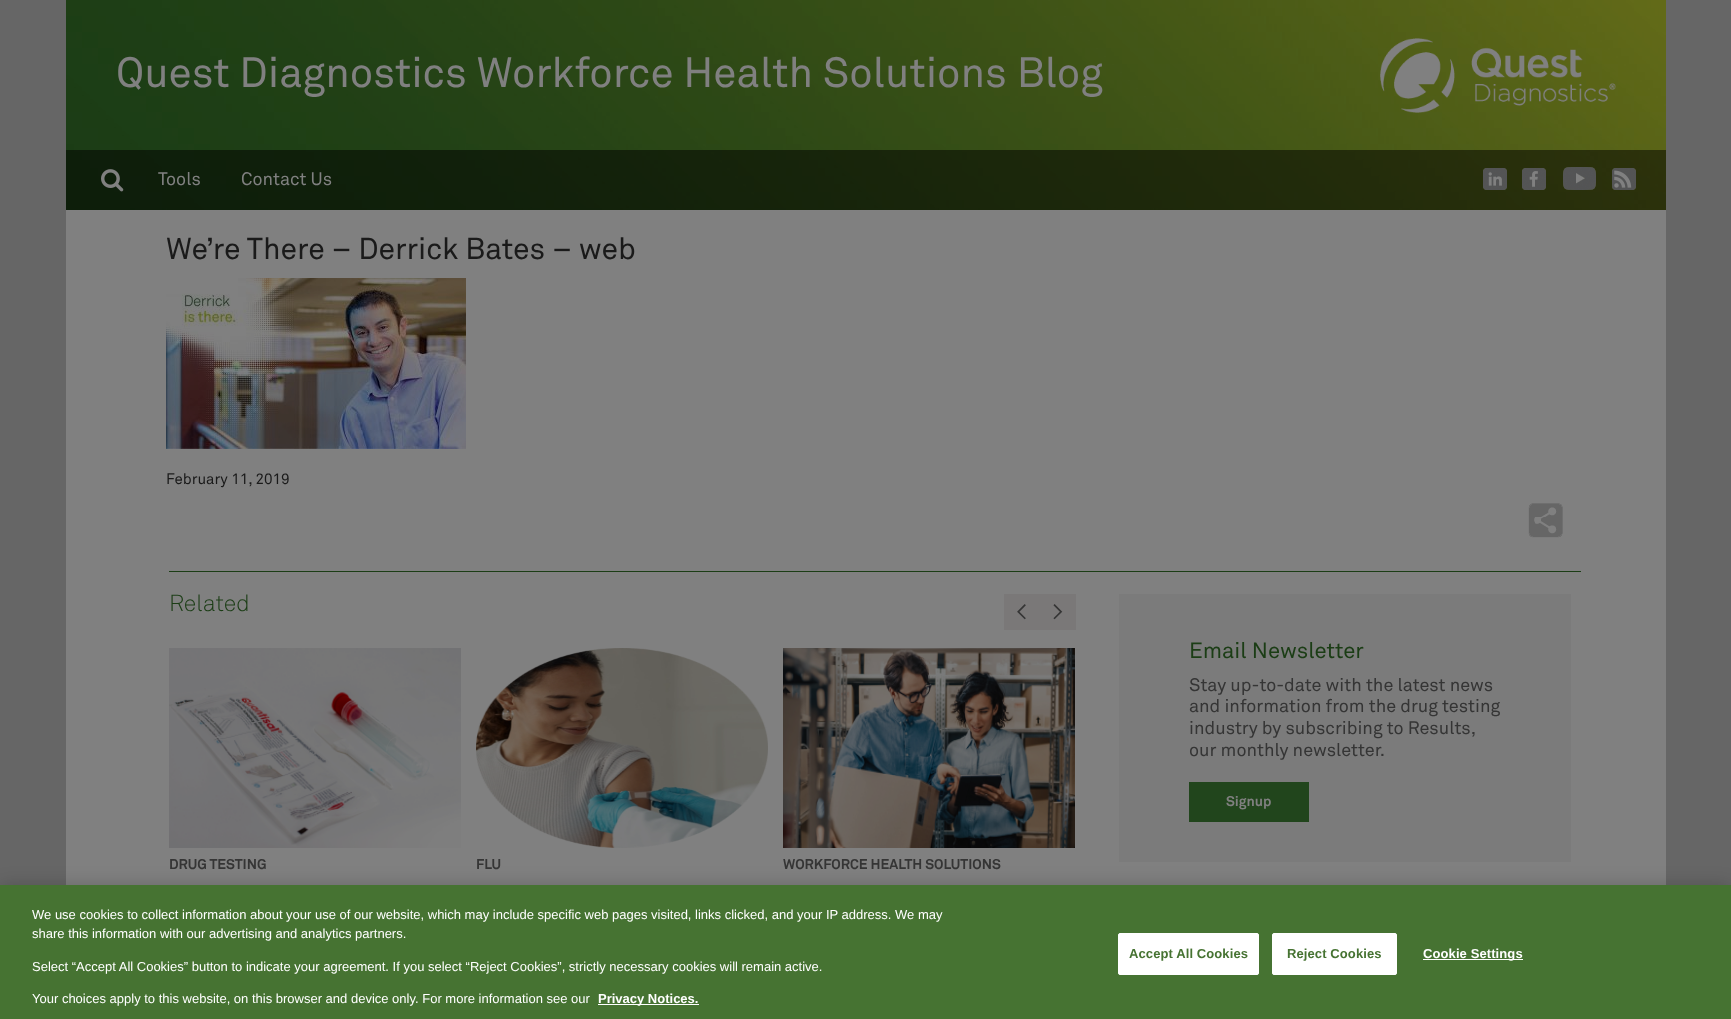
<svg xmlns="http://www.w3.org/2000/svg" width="1731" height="1019">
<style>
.a{font:42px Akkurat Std;fill:#808080}
.b{font:18px Akkurat Std;fill:#808080}
.c{font:30px Akkurat Std;fill:#1a1a1a}
.d{font:15px Akkurat Std;fill:#1a1a1a}
.e{font:300 23px Akkurat Std;fill:#1b3d15}
.f{font:24px Akkurat Std;fill:#353535}
.g{font:bold 14px Akkurat Std;fill:#353535}
.h{font:22px Akkurat Std;fill:#1b3d15}
.i{font:18px Akkurat Std;fill:#353535}
.j{font:bold 14px Akkurat Std;fill:#808080}
.k{font:13px Liberation Sans;fill:#fff}
.l{font:bold 13px Liberation Sans;fill:#fff}
.m{font:bold 13px Liberation Sans;letter-spacing:0.1px;fill:#467332}
.n{font:bold 13px Liberation Sans;letter-spacing:0.1px;fill:#fff}
</style>
<rect width="100%" height="100%" fill="#666"/>
<path fill="#808080" d="M66 210h1600v675H66z"/>
<image href="1.png" x="66" y="0" width="1600" height="210"/>
<image href="2.png" x="1380" y="38" width="236" height="75"/>
<path fill="#00000080" d="M66 150h1600v60H66z"/>
<image href="3.png" x="101" y="169" width="23" height="23"/>
<image href="4.png" x="1483" y="168" width="24" height="22"/>
<image href="5.png" x="1522" y="168" width="24" height="22"/>
<image href="6.png" x="1563" y="167" width="33" height="23"/>
<image href="7.png" x="1612" y="168" width="24" height="22"/>
<image href="8.png" x="166" y="278" width="300" height="171"/>
<image href="9.png" x="1528" y="503" width="35" height="35"/>
<path fill="#1b3d15" d="M169 571h1412v1H169z"/>
<path fill="#7a7878" d="M1004 594h72v36H1004z"/>
<image href="10.png" x="169" y="648" width="292" height="200"/>
<image href="11.png" x="476" y="648" width="292" height="200"/>
<image href="12.png" x="783" y="648" width="292" height="200"/>
<path fill="#7b7b7b" d="M1119 594h452v268H1119z"/>
<path fill="#21451c" d="M1189 782h120v40H1189z"/>
<path fill="#00000033" filter="blur(9px)" d="M0 885h1731v134H0z"/>
<path fill="#467332" d="M0 885h1731v134H0z"/>
<path fill="#fff" d="M598 1004h101v1H598z"/>
<rect fill="#fff" stroke="#fff" x="1118.5" y="933.5" width="140" height="41" rx="1.5"/>
<rect fill="#fff" stroke="#fff" x="1272.5" y="933.5" width="124" height="41" rx="1.5"/>
<path fill="#fff" d="M1423 959h100v1H1423z"/>
<text class="a" x="116" y="87">Quest Diagnostics Workforce Health Solutions Blog</text>
<text class="b" x="158" y="185">Tools</text>
<text class="b" x="241" y="185">Contact Us</text>
<text class="c" x="166" y="259">We’re There – Derrick Bates – web</text>
<text class="d" x="166" y="484">February 11, 2019</text>
<text class="e" x="169" y="611">Related</text>
<text class="f" x="1016" y="619">&lt;</text>
<text class="f" x="1052" y="619">&gt;</text>
<text class="g" x="169" y="869">DRUG TESTING</text>
<text class="g" x="476" y="869">FLU</text>
<text class="g" x="783" y="869">WORKFORCE HEALTH SOLUTIONS</text>
<text class="h" x="1189" y="658">Email Newsletter</text>
<text class="i" x="1189" y="691">Stay up-to-date with the latest news</text>
<text class="i" x="1189" y="712">and information from the drug testing</text>
<text class="i" x="1189" y="734">industry by subscribing to Results,</text>
<text class="i" x="1189" y="756">our monthly newsletter.</text>
<text class="j" x="1226" y="806">Signup</text>
<text class="k" x="32" y="919">We use cookies to collect information about your use of our website, which may include specific web pages visited, links clicked, and your IP address. We may</text>
<text class="k" x="32" y="938">share this information with our advertising and analytics partners.</text>
<text class="k" x="32" y="971">Select “Accept All Cookies” button to indicate your agreement. If you select “Reject Cookies”, strictly necessary cookies will remain active.</text>
<text class="k" x="32" y="1003">Your choices apply to this website, on this browser and device only. For more information see our</text>
<text class="l" x="598" y="1003">Privacy Notices.</text>
<text class="m" x="1129" y="958">Accept All Cookies</text>
<text class="m" x="1287" y="958">Reject Cookies</text>
<text class="n" x="1423" y="958">Cookie Settings</text>
</svg>
